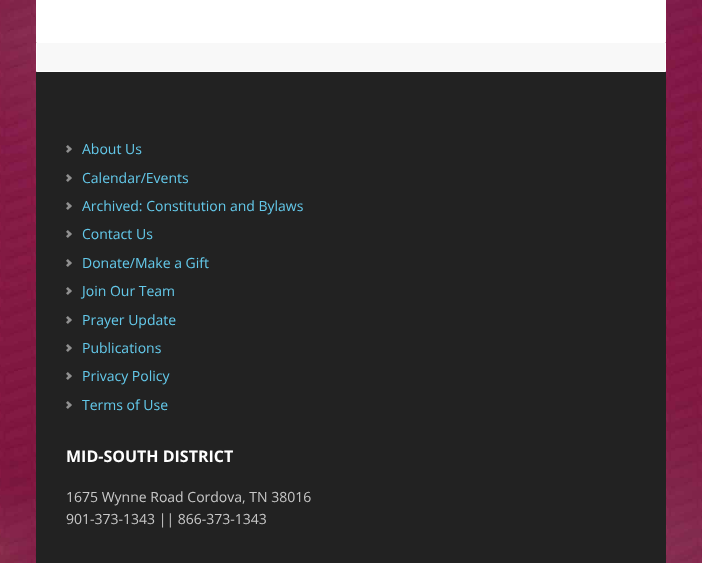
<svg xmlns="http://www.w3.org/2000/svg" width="702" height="563">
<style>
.a{font:14px Open Sans;fill:#64c9ea}
.b{font:bold 16px Open Sans;fill:#fff}
.c{font:14px Open Sans;fill:#c8c8c8}
</style>
<rect width="100%" height="100%" fill="#fff"/>
<image href="1.png" x="0" y="0" width="702" height="563"/>
<path fill="#fff" d="M36 0h630v42H36z"/>
<path fill="#f8f8f8" stroke="#fff" d="M36.5 42.5h629v29H36.5z"/>
<path fill="#222" d="M36 72h630v491H36z"/>
<image href="2.png" x="66" y="145" width="6" height="8"/>
<image href="2.png" x="66" y="174" width="6" height="8"/>
<image href="2.png" x="66" y="202" width="6" height="8"/>
<image href="2.png" x="66" y="230" width="6" height="8"/>
<image href="2.png" x="66" y="259" width="6" height="8"/>
<image href="2.png" x="66" y="287" width="6" height="8"/>
<image href="2.png" x="66" y="316" width="6" height="8"/>
<image href="2.png" x="66" y="344" width="6" height="8"/>
<image href="2.png" x="66" y="372" width="6" height="8"/>
<image href="2.png" x="66" y="401" width="6" height="8"/>
<text class="a" x="82" y="154">About Us</text>
<text class="a" x="82" y="183">Calendar/Events</text>
<text class="a" x="82" y="211">Archived: Constitution and Bylaws</text>
<text class="a" x="82" y="239">Contact Us</text>
<text class="a" x="82" y="268">Donate/Make a Gift</text>
<text class="a" x="82" y="296">Join Our Team</text>
<text class="a" x="82" y="325">Prayer Update</text>
<text class="a" x="82" y="353">Publications</text>
<text class="a" x="82" y="381">Privacy Policy</text>
<text class="a" x="82" y="410">Terms of Use</text>
<text class="b" x="66" y="462">MID-SOUTH DISTRICT</text>
<text class="c" x="66" y="502">1675 Wynne Road Cordova, TN 38016</text>
<text class="c" x="66" y="524">901-373-1343 || 866-373-1343</text>
</svg>
